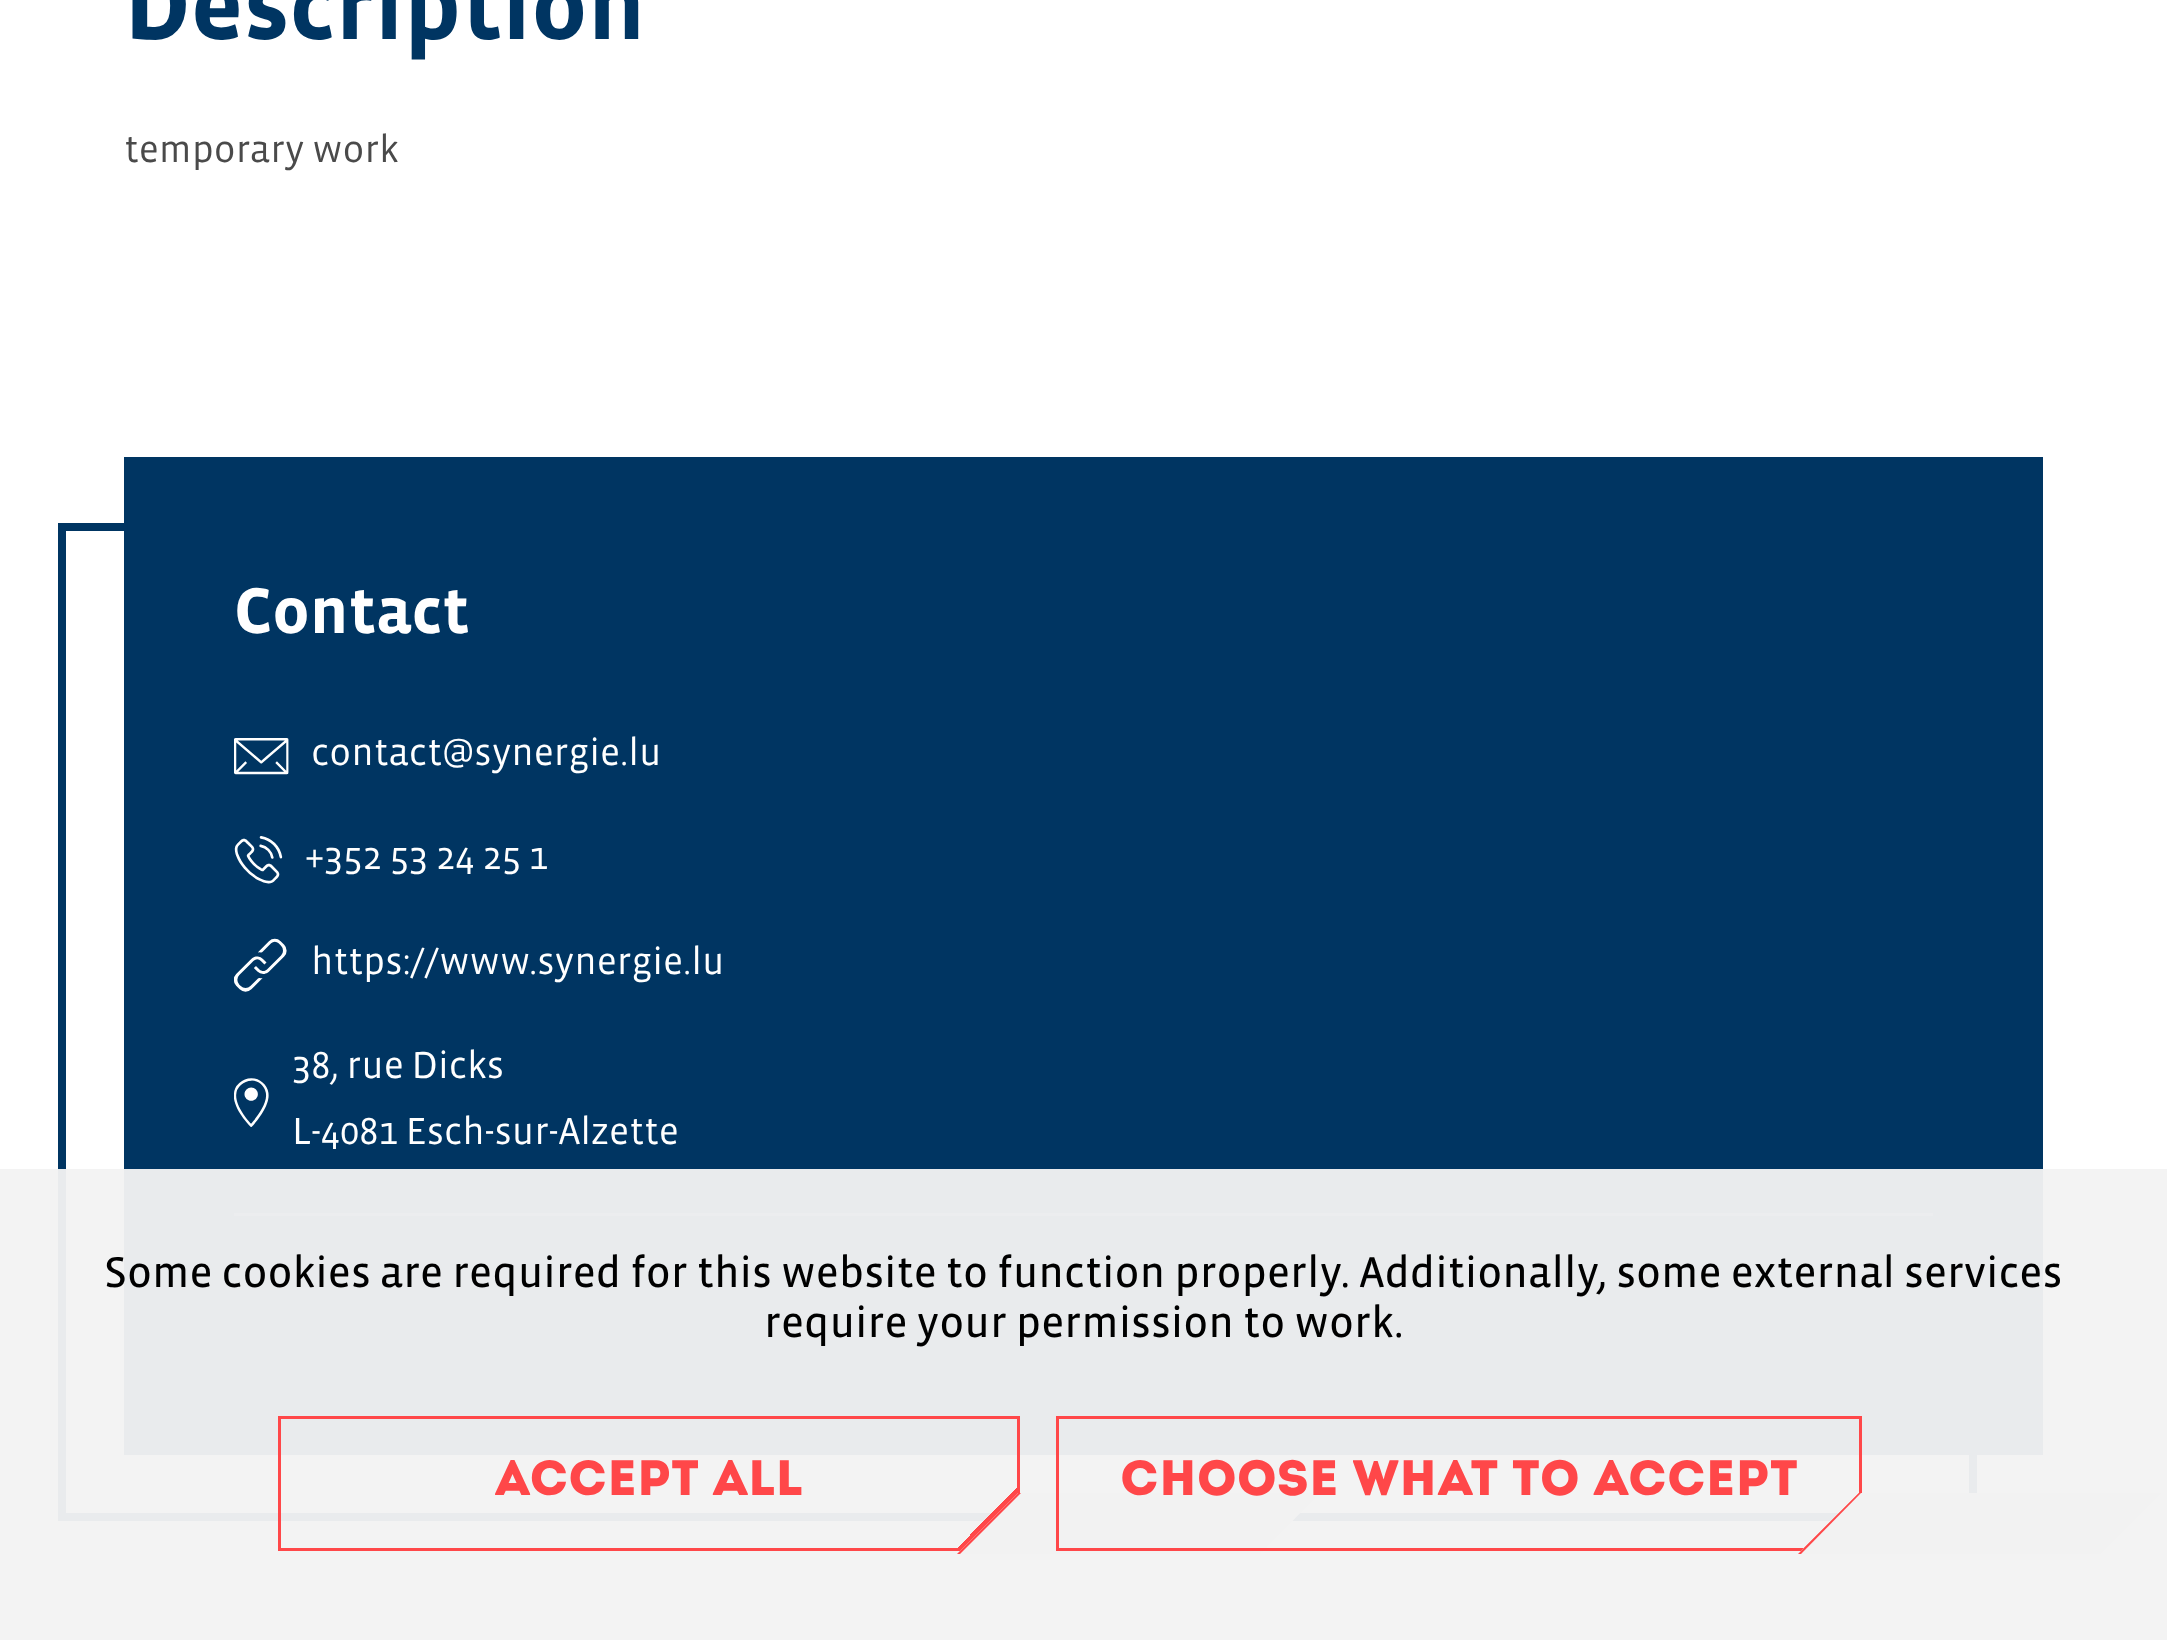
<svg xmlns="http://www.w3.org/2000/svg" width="2167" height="1640">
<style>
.a{font:bold 99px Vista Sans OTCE;fill:#003562}
.b{font:38.5px Vista Sans OTCE;fill:#4a4a4a}
.c{font:bold 66px Vista Sans OTCE;fill:#fff}
.d{font:38.5px Vista Sans OTCE;fill:#fff}
.e{font:44px 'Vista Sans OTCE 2';fill:#000}
.f{font:49.5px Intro;fill:#ff4749}
</style>
<defs>
<linearGradient id="g1" gradientUnits="userSpaceOnUse" x1="866" y1="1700" x2="432" y2="1267"><stop offset="0.07" stop-color="#ff4749"/><stop offset="0.07" stop-color="#ff4749" stop-opacity="0"/></linearGradient>
<linearGradient id="g2" gradientUnits="userSpaceOnUse" x1="1691" y1="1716" x2="1227" y2="1251"><stop offset="0.06" stop-color="#ff4749"/><stop offset="0.06" stop-color="#ff4749" stop-opacity="0"/></linearGradient>
</defs>
<rect width="100%" height="100%" fill="#fff"/>
<path fill="none" stroke="#003562" stroke-width="8" d="M62 527h1911v990H62z"/>
<path fill="#003562" d="M124 457h1919v998H124z"/>
<image href="1.png" x="234" y="738" width="55" height="37"/>
<image href="2.png" x="234" y="836" width="49" height="48"/>
<image href="3.png" x="234" y="938" width="53" height="54"/>
<image href="4.png" x="234" y="1078" width="35" height="49"/>
<path fill="#4d7291" d="M234 1213h1699v3H234z"/>
<path fill="#f2f2f2f5" d="M0 1169h2167v471H0z"/>
<path fill="url(#g1)" d="M958 1488h59v60H958z"/>
<path fill="none" stroke="#ff4749" stroke-width="3" d="M279.5 1417.5h739v132H279.5z"/>
<path fill="#f2f2f2" d="M1018 1493h302l-60 61h-303z"/>
<path fill="#ff4749" d="M1018 1493h3l-61 61h-3z"/>
<path fill="url(#g2)" d="M1804 1493h55v55H1804z"/>
<path fill="none" stroke="#ff4749" stroke-width="3" d="M1057.5 1417.5h803v132H1057.5z"/>
<path fill="#f2f2f2" d="M1859 1493h302l-61 61h-302z"/>
<path fill="#ff4749" d="M1859 1493h2l-60 61h-3z"/>
<text class="a" x="124" y="39">Description</text>
<text class="b" x="124" y="162">temporary work</text>
<text class="c" x="234" y="633">Contact</text>
<text class="d" x="311" y="765">contact@synergie.lu</text>
<text class="d" x="305" y="869">+352 53 24 25 1</text>
<text class="d" x="311" y="974">https://www.synergie.lu</text>
<text class="d" x="292" y="1078">38, rue Dicks</text>
<text class="d" x="292" y="1144">L-4081 Esch-sur-Alzette</text>
<text class="e" x="104" y="1287">Some cookies are required for this website to function properly. Additionally, some external services</text>
<text class="e" x="764" y="1337">require your permission to work.</text>
<text class="f" x="495" y="1495">ACCEPT ALL</text>
<text class="f" x="1120" y="1495">CHOOSE WHAT TO ACCEPT</text>
</svg>
